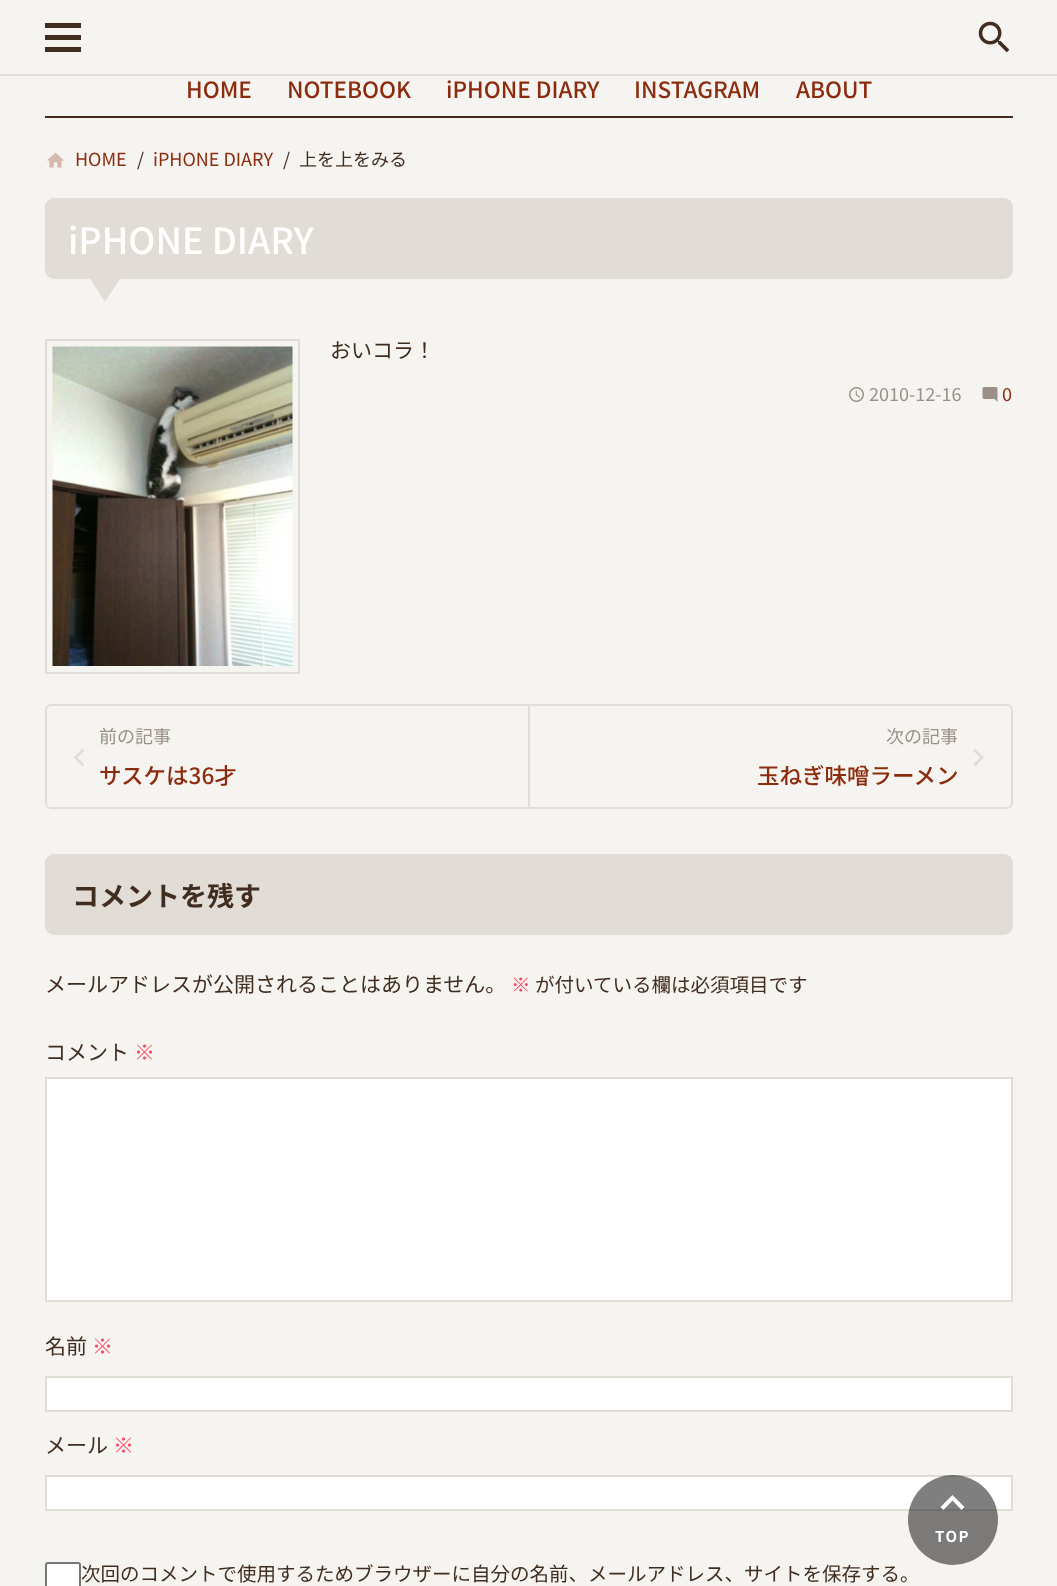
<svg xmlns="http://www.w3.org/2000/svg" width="1057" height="1586">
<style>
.a{font:500 22.5px Noto Sans CJK JP;fill:#8c2c0f}
.b{font:18px Noto Sans CJK JP;fill:#8c2c0f}
.c{font:18px Noto Sans CJK JP;fill:#402d1f}
.d{font:500 36px Noto Sans CJK JP;fill:#fff}
.e{font:21px Noto Sans CJK JP;fill:#402d1f}
.f{font:18px Noto Sans CJK JP;fill:#9b9088}
.g{font:bold 27px Noto Sans CJK JP;fill:#402d1f}
.h{font:19.5px Noto Sans CJK JP;fill:#fd4362}
.i{font:19.5px Noto Sans CJK JP;fill:#402d1f}
.j{font:21px Noto Sans CJK JP;fill:#fd4362}
.k{font:bold 15px Noto Sans CJK JP;letter-spacing:1.5px;fill:#fff}
</style>
<rect width="100%" height="100%" fill="#f6f4f1"/>
<path fill="#e2dcd6" d="M0 74h1057v2H0z"/>
<path fill="#402d1f" d="M45 23h36v5H45z"/>
<path fill="#402d1f" d="M45 35h36v5H45z"/>
<path fill="#402d1f" d="M45 47h36v5H45z"/>
<image href="1.png" x="978" y="21" width="32" height="32"/>
<path fill="#402d1f" d="M45 116h968v2H45z"/>
<image href="2.png" x="47" y="152" width="17" height="16"/>
<rect fill="#e2dcd6" x="45" y="198" width="968" height="81" rx="9"/>
<path fill="#e2dcd6" d="M90 279h30l-15 22.5z"/>
<path fill="none" stroke="#e2dcd6" stroke-width="2" d="M46 340h253v333H46z"/>
<image href="3.png" x="52" y="346" width="241" height="320"/>
<image href="4.png" x="849" y="387" width="15" height="15"/>
<image href="5.png" x="982" y="387" width="16" height="15"/>
<rect fill="none" stroke="#e2dcd6" stroke-width="2" x="46" y="705" width="966" height="103" rx="5"/>
<path fill="#e2dcd6" d="M528 705h2v102H528z"/>
<path fill="#e2dcd6" d="M84.5 750.5l-7 7l7 7l-2 2l-9-9l9-9z"/>
<path fill="#e2dcd6" d="M975 748.5l9 9l-9 9l-2-2l7-7l-7-7z"/>
<rect fill="#e2dcd6" x="45" y="854" width="968" height="81" rx="9"/>
<path fill="#fff" stroke="#e2dcd6" stroke-width="2" d="M46 1078h966v223H46z"/>
<path fill="#fff" stroke="#e2dcd6" stroke-width="2" d="M46 1377h966v34H46z"/>
<path fill="#fff" stroke="#e2dcd6" stroke-width="2" d="M46 1476h966v34H46z"/>
<rect fill="#fff" stroke="#767676" stroke-width="2" x="46" y="1563" width="34" height="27" rx="2"/>
<circle fill="#00000080" cx="953" cy="1520" r="45"/>
<path fill="#fff" d="M943.5 1510l-3-3l12-12l12 12l-3 3l-9-9.5z"/>
<text class="a" x="186" y="98">HOME</text>
<text class="a" x="287" y="98">NOTEBOOK</text>
<text class="a" x="446" y="98">iPHONE DIARY</text>
<text class="a" x="634" y="98">INSTAGRAM</text>
<text class="a" x="796" y="98">ABOUT</text>
<text class="b" x="75" y="166">HOME</text>
<text class="c" x="137" y="166">/</text>
<text class="b" x="153" y="166">iPHONE DIARY</text>
<text class="c" x="283" y="166">/</text>
<text class="c" x="299" y="166">上を上をみる</text>
<text class="d" x="68" y="254">iPHONE DIARY</text>
<text class="e" x="330" y="358">おいコラ！</text>
<text class="f" x="869" y="401">2010-12-16</text>
<text class="b" x="1002" y="401">0</text>
<text class="f" x="99" y="743">前の記事</text>
<text class="a" x="99" y="784">サスケは36才</text>
<text class="f" x="886" y="743">次の記事</text>
<text class="a" x="757" y="784">玉ねぎ味噌ラーメン</text>
<text class="g" x="72" y="906">コメントを残す</text>
<text class="e" x="45" y="992">メールアドレスが公開されることはありません。</text>
<text class="h" x="511" y="992">※</text>
<text class="i" x="535" y="992">が付いている欄は必須項目です</text>
<text class="e" x="45" y="1060">コメント</text>
<text class="j" x="134" y="1060">※</text>
<text class="e" x="45" y="1354">名前</text>
<text class="j" x="92" y="1354">※</text>
<text class="e" x="45" y="1453">メール</text>
<text class="j" x="113" y="1453">※</text>
<text class="i" x="81" y="1581">次回のコメントで使用するためブラウザーに自分の名前、メールアドレス、サイトを保存する。</text>
<text class="k" x="935" y="1542">TOP</text>
</svg>
